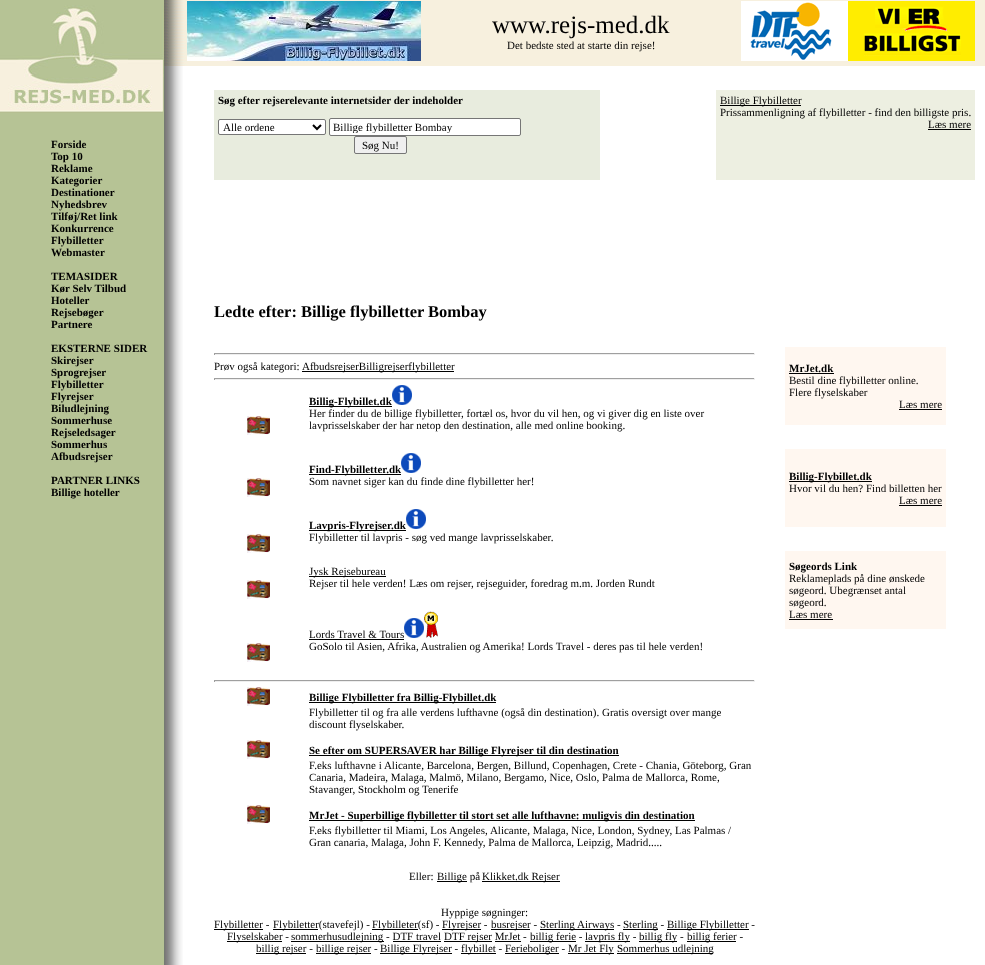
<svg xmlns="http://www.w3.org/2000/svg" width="985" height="965">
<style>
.a{font:bold 11px Liberation Serif;fill:#000}
.b{font:25px Liberation Serif;fill:#000}
.c{font:11px Liberation Serif;fill:#000}
.d{font:bold 16.5px Liberation Serif;fill:#000}
</style>
<defs>
<clipPath id="clip1"><path d="M333 121h184v12H333z"/></clipPath>
</defs>
<rect width="100%" height="100%" fill="#fff"/>
<path fill="#b6c395" d="M0 0h164v965H0z"/>
<image href="1.png" x="0" y="55" width="51" height="20"/>
<image href="2.png" x="51" y="5" width="113" height="70"/>
<image href="3.png" x="0" y="75" width="51" height="38"/>
<image href="4.png" x="51" y="75" width="113" height="38"/>
<image href="5.png" x="164" y="66" width="19" height="899"/>
<image href="6.png" x="164" y="0" width="23" height="66"/>
<path fill="#f7f0de" d="M187 0h798v66H187z"/>
<image href="7.png" x="187" y="1" width="234" height="60"/>
<image href="8.png" x="741" y="1" width="234" height="60"/>
<path fill="#e8ecde" d="M214 90h386v90H214z"/>
<rect fill="#fff" stroke="#767676" x="218.5" y="119.5" width="107" height="15" rx="1.5"/>
<path fill="none" stroke="#000" stroke-width="2" d="M313 125l4 4l4-4"/>
<rect fill="#fff" stroke="#767676" x="329.5" y="118.5" width="191" height="17" rx="1.5"/>
<rect fill="#efefef" stroke="#767676" x="354.5" y="136.5" width="52" height="17" rx="1.5"/>
<path fill="#edefe1" d="M716 90h259v90H716z"/>
<path fill="#000" d="M720 105h81v1H720z"/>
<path fill="#000" d="M928 129h43v1H928z"/>
<path fill="#9f9f9f" d="M214 353h541v1H214z"/>
<path fill="#eee" d="M754 353h1v2H754z"/>
<path fill="#eee" d="M214 354h541v1H214z"/>
<path fill="#9f9f9f" d="M214 353h1v2H214z"/>
<path fill="#000" d="M302 371h152v1H302z"/>
<path fill="#9f9f9f" d="M214 378h541v1H214z"/>
<path fill="#eee" d="M754 378h1v2H754z"/>
<path fill="#eee" d="M214 379h541v1H214z"/>
<path fill="#9f9f9f" d="M214 378h1v2H214z"/>
<path fill="#000" d="M309 406h83v1H309z"/>
<image href="9.png" x="392" y="385" width="20" height="20"/>
<image href="10.png" x="247" y="416" width="23" height="19"/>
<path fill="#000" d="M309 474h92v1H309z"/>
<image href="10.png" x="247" y="478" width="23" height="19"/>
<path fill="#000" d="M309 530h97v1H309z"/>
<image href="9.png" x="406" y="509" width="20" height="20"/>
<image href="10.png" x="247" y="534" width="23" height="19"/>
<path fill="#000" d="M309 576h77v1H309z"/>
<image href="10.png" x="247" y="580" width="23" height="19"/>
<path fill="#000" d="M309 639h95v1H309z"/>
<image href="9.png" x="404" y="618" width="20" height="20"/>
<image href="11.png" x="424" y="611" width="14" height="27"/>
<image href="10.png" x="247" y="643" width="23" height="19"/>
<path fill="#9f9f9f" d="M214 680h541v1H214z"/>
<path fill="#eee" d="M754 680h1v2H754z"/>
<path fill="#eee" d="M214 681h541v1H214z"/>
<path fill="#9f9f9f" d="M214 680h1v2H214z"/>
<image href="10.png" x="247" y="687" width="23" height="19"/>
<path fill="#000" d="M309 702h187v1H309z"/>
<image href="10.png" x="247" y="740" width="23" height="19"/>
<path fill="#000" d="M309 755h310v1H309z"/>
<image href="10.png" x="247" y="805" width="23" height="19"/>
<path fill="#000" d="M309 820h386v1H309z"/>
<path fill="#000" d="M437 881h30v1H437z"/>
<path fill="#000" d="M482 881h78v1H482z"/>
<path fill="#000" d="M214 929h49v1H214z"/>
<path fill="#000" d="M273 929h45v1H273z"/>
<path fill="#000" d="M372 929h46v1H372z"/>
<path fill="#000" d="M442 929h39v1H442z"/>
<path fill="#000" d="M491 929h39v1H491z"/>
<path fill="#000" d="M540 929h74v1H540z"/>
<path fill="#000" d="M623 929h35v1H623z"/>
<path fill="#000" d="M667 929h82v1H667z"/>
<path fill="#000" d="M227 941h55v1H227z"/>
<path fill="#000" d="M291 941h93v1H291z"/>
<path fill="#000" d="M444 941h48v1H444z"/>
<path fill="#000" d="M530 941h46v1H530z"/>
<path fill="#000" d="M585 941h45v1H585z"/>
<path fill="#000" d="M639 941h38v1H639z"/>
<path fill="#000" d="M687 941h49v1H687z"/>
<path fill="#000" d="M393 941h48v1H393z"/>
<path fill="#000" d="M495 941h26v1H495z"/>
<path fill="#000" d="M256 953h50v1H256z"/>
<path fill="#000" d="M316 953h55v1H316z"/>
<path fill="#000" d="M380 953h72v1H380z"/>
<path fill="#000" d="M461 953h35v1H461z"/>
<path fill="#000" d="M505 953h54v1H505z"/>
<path fill="#000" d="M568 953h46v1H568z"/>
<path fill="#000" d="M617 953h96v1H617z"/>
<path fill="#fff7f0" d="M785 347h161v78H785z"/>
<path fill="#000" d="M789 373h45v1H789z"/>
<path fill="#000" d="M899 409h43v1H899z"/>
<path fill="#fff7f0" d="M785 449h161v78H785z"/>
<path fill="#000" d="M789 481h83v1H789z"/>
<path fill="#000" d="M899 505h43v1H899z"/>
<path fill="#fff7f0" d="M785 551h161v78H785z"/>
<path fill="#000" d="M789 619h44v1H789z"/>
<text class="a" x="51" y="148">Forside</text>
<text class="a" x="51" y="160">Top 10</text>
<text class="a" x="51" y="172">Reklame</text>
<text class="a" x="51" y="184">Kategorier</text>
<text class="a" x="51" y="196">Destinationer</text>
<text class="a" x="51" y="208">Nyhedsbrev</text>
<text class="a" x="51" y="220">Tilføj/Ret link</text>
<text class="a" x="51" y="232">Konkurrence</text>
<text class="a" x="51" y="244">Flybilletter</text>
<text class="a" x="51" y="256">Webmaster</text>
<text class="a" x="51" y="280">TEMASIDER</text>
<text class="a" x="51" y="292">Kør Selv Tilbud</text>
<text class="a" x="51" y="304">Hoteller</text>
<text class="a" x="51" y="316">Rejsebøger</text>
<text class="a" x="51" y="328">Partnere</text>
<text class="a" x="51" y="352">EKSTERNE SIDER</text>
<text class="a" x="51" y="364">Skirejser</text>
<text class="a" x="51" y="376">Sprogrejser</text>
<text class="a" x="51" y="388">Flybilletter</text>
<text class="a" x="51" y="400">Flyrejser</text>
<text class="a" x="51" y="412">Biludlejning</text>
<text class="a" x="51" y="424">Sommerhuse</text>
<text class="a" x="51" y="436">Rejseledsager</text>
<text class="a" x="51" y="448">Sommerhus</text>
<text class="a" x="51" y="460">Afbudsrejser</text>
<text class="a" x="51" y="484">PARTNER LINKS</text>
<text class="a" x="51" y="496">Billige hoteller</text>
<text class="b" x="492" y="33">www.rejs-med.dk</text>
<text class="c" x="507" y="49">Det bedste sted at starte din rejse!</text>
<text class="a" x="218" y="104">Søg efter rejserelevante internetsider der indeholder</text>
<text class="c" x="223" y="131">Alle ordene</text>
<g clip-path="url(#clip1)">
<text class="c" x="333" y="131">Billige flybilletter Bombay</text>
</g>
<text class="c" x="362" y="149">Søg Nu!</text>
<text class="c" x="720" y="104">Billige Flybilletter</text>
<text class="c" x="720" y="116">Prissammenligning af flybilletter - find den billigste pris.</text>
<text class="c" x="928" y="128">Læs mere</text>
<text class="d" x="214" y="317">Ledte efter: Billige flybilletter Bombay</text>
<text class="c" x="214" y="370">Prøv også kategori:</text>
<text class="c" x="302" y="370">AfbudsrejserBilligrejserflybilletter</text>
<text class="a" x="309" y="405">Billig-Flybillet.dk</text>
<text class="c" x="309" y="417">Her finder du de billige flybilletter, fortæl os, hvor du vil hen, og vi giver dig en liste over</text>
<text class="c" x="309" y="429">lavprisselskaber der har netop den destination, alle med online booking.</text>
<text class="a" x="309" y="473">Find-Flybilletter.dk</text>
<image href="9.png" x="401" y="453" width="20" height="20"/>
<text class="c" x="309" y="485">Som navnet siger kan du finde dine flybilletter her!</text>
<text class="a" x="309" y="529">Lavpris-Flyrejser.dk</text>
<text class="c" x="309" y="541">Flybilletter til lavpris - søg ved mange lavprisselskaber.</text>
<text class="c" x="309" y="575">Jysk Rejsebureau</text>
<text class="c" x="309" y="587">Rejser til hele verden! Læs om rejser, rejseguider, foredrag m.m. Jorden Rundt</text>
<text class="c" x="309" y="638">Lords Travel &amp; Tours</text>
<text class="c" x="309" y="650">GoSolo til Asien, Afrika, Australien og Amerika! Lords Travel - deres pas til hele verden!</text>
<text class="a" x="309" y="701">Billige Flybilletter fra Billig-Flybillet.dk</text>
<text class="c" x="309" y="716">Flybilletter til og fra alle verdens lufthavne (også din destination). Gratis oversigt over mange</text>
<text class="c" x="309" y="728">discount flyselskaber.</text>
<text class="a" x="309" y="754">Se efter om SUPERSAVER har Billige Flyrejser til din destination</text>
<text class="c" x="309" y="769">F.eks lufthavne i Alicante, Barcelona, Bergen, Billund, Copenhagen, Crete - Chania, Göteborg, Gran</text>
<text class="c" x="309" y="781">Canaria, Madeira, Malaga, Malmö, Milano, Bergamo, Nice, Oslo, Palma de Mallorca, Rome,</text>
<text class="c" x="309" y="793">Stavanger, Stockholm og Tenerife</text>
<text class="a" x="309" y="819">MrJet - Superbillige flybilletter til stort set alle lufthavne: muligvis din destination</text>
<text class="c" x="309" y="834">F.eks flybilletter til Miami, Los Angeles, Alicante, Malaga, Nice, London, Sydney, Las Palmas /</text>
<text class="c" x="309" y="846">Gran canaria, Malaga, John F. Kennedy, Palma de Mallorca, Leipzig, Madrid.....</text>
<text class="c" x="409" y="880">Eller:</text>
<text class="c" x="437" y="880">Billige på</text>
<text class="c" x="482" y="880">Klikket.dk Rejser</text>
<text class="c" x="441" y="916">Hyppige søgninger:</text>
<text class="c" x="214" y="928">Flybilletter -</text>
<text class="c" x="273" y="928">Flybiletter(stavefejl) -</text>
<text class="c" x="372" y="928">Flybilleter(sf) -</text>
<text class="c" x="442" y="928">Flyrejser -</text>
<text class="c" x="491" y="928">busrejser -</text>
<text class="c" x="540" y="928">Sterling Airways -</text>
<text class="c" x="623" y="928">Sterling -</text>
<text class="c" x="667" y="928">Billige Flybilletter -</text>
<text class="c" x="227" y="940">Flyselskaber -</text>
<text class="c" x="291" y="940">sommerhusudlejning - DTF travel</text>
<text class="c" x="444" y="940">DTF rejser MrJet -</text>
<text class="c" x="530" y="940">billig ferie -</text>
<text class="c" x="585" y="940">lavpris fly -</text>
<text class="c" x="639" y="940">billig fly -</text>
<text class="c" x="687" y="940">billig ferier -</text>
<text class="c" x="256" y="952">billig rejser -</text>
<text class="c" x="316" y="952">billige rejser -</text>
<text class="c" x="380" y="952">Billige Flyrejser -</text>
<text class="c" x="461" y="952">flybillet -</text>
<text class="c" x="505" y="952">Ferieboliger -</text>
<text class="c" x="568" y="952">Mr Jet Fly</text>
<text class="c" x="617" y="952">Sommerhus udlejning</text>
<text class="a" x="789" y="372">MrJet.dk</text>
<text class="c" x="789" y="384">Bestil dine flybilletter online.</text>
<text class="c" x="789" y="396">Flere flyselskaber</text>
<text class="c" x="899" y="408">Læs mere</text>
<text class="a" x="789" y="480">Billig-Flybillet.dk</text>
<text class="c" x="789" y="492">Hvor vil du hen? Find billetten her</text>
<text class="c" x="899" y="504">Læs mere</text>
<text class="a" x="789" y="570">Søgeords Link</text>
<text class="c" x="789" y="582">Reklameplads på dine ønskede</text>
<text class="c" x="789" y="594">søgeord. Ubegrænset antal</text>
<text class="c" x="789" y="606">søgeord.</text>
<text class="c" x="789" y="618">Læs mere</text>
</svg>
